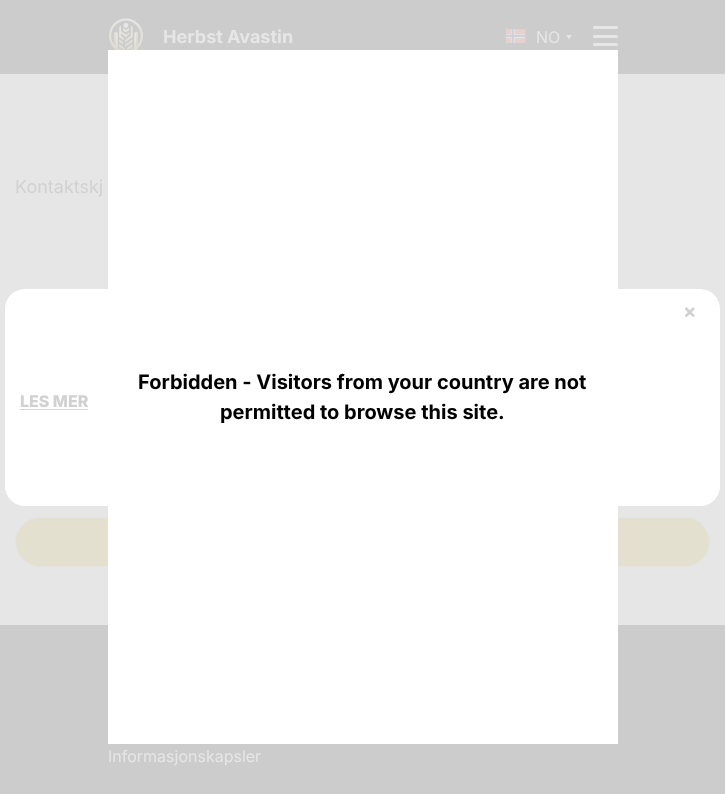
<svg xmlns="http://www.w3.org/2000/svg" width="725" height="794">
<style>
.a{font:bold 18px Inter;fill:#e6e6e6}
.b{font:16px Inter;fill:#e6e6e6}
.c{font:18px Inter;fill:#d1d1d1}
.d{font:bold 20px Inter;fill:#d1d1d1}
.e{font:800 16px Inter;fill:#d1d1d1}
.f{font:bold 20px Inter;fill:#000}
</style>
<rect width="100%" height="100%" fill="#e6e6e6"/>
<path fill="#ccc" d="M0 0h725v74H0z"/>
<image href="1.png" x="109" y="18" width="34" height="32"/>
<image href="2.png" x="505" y="29" width="21" height="14"/>
<path fill="#e6e6e6" d="M566 35h6l-3 4z"/>
<rect fill="#e6e6e6" x="593" y="26" width="25" height="3" rx="1.5"/>
<rect fill="#e6e6e6" x="593" y="35" width="25" height="3" rx="1.5"/>
<rect fill="#e6e6e6" x="593" y="43" width="25" height="3" rx="1.5"/>
<rect fill="#e3e0d0" stroke="#e4e4e4" x="15.5" y="517.5" width="694" height="49" rx="24.5"/>
<rect fill="#fff" x="5" y="289" width="715" height="217" rx="20"/>
<path fill="#d6d6d6" d="M20 409h68v1H20z"/>
<path fill="#ccc" d="M0 625h725v169H0z"/>
<path fill="#fff" d="M108 50h510v694H108z"/>
<text class="a" x="163" y="43">Herbst Avastin</text>
<text class="b" x="536" y="43">NO</text>
<text class="c" x="15" y="193">Kontaktskj</text>
<text class="d" x="683" y="318">×</text>
<text class="e" x="20" y="407">LES MER</text>
<text class="f" x="138" y="389">Forbidden - Visitors from your country are not</text>
<text class="f" x="220" y="419">permitted to browse this site.</text>
<text class="b" x="108" y="762">Informasjonskapsler</text>
</svg>
